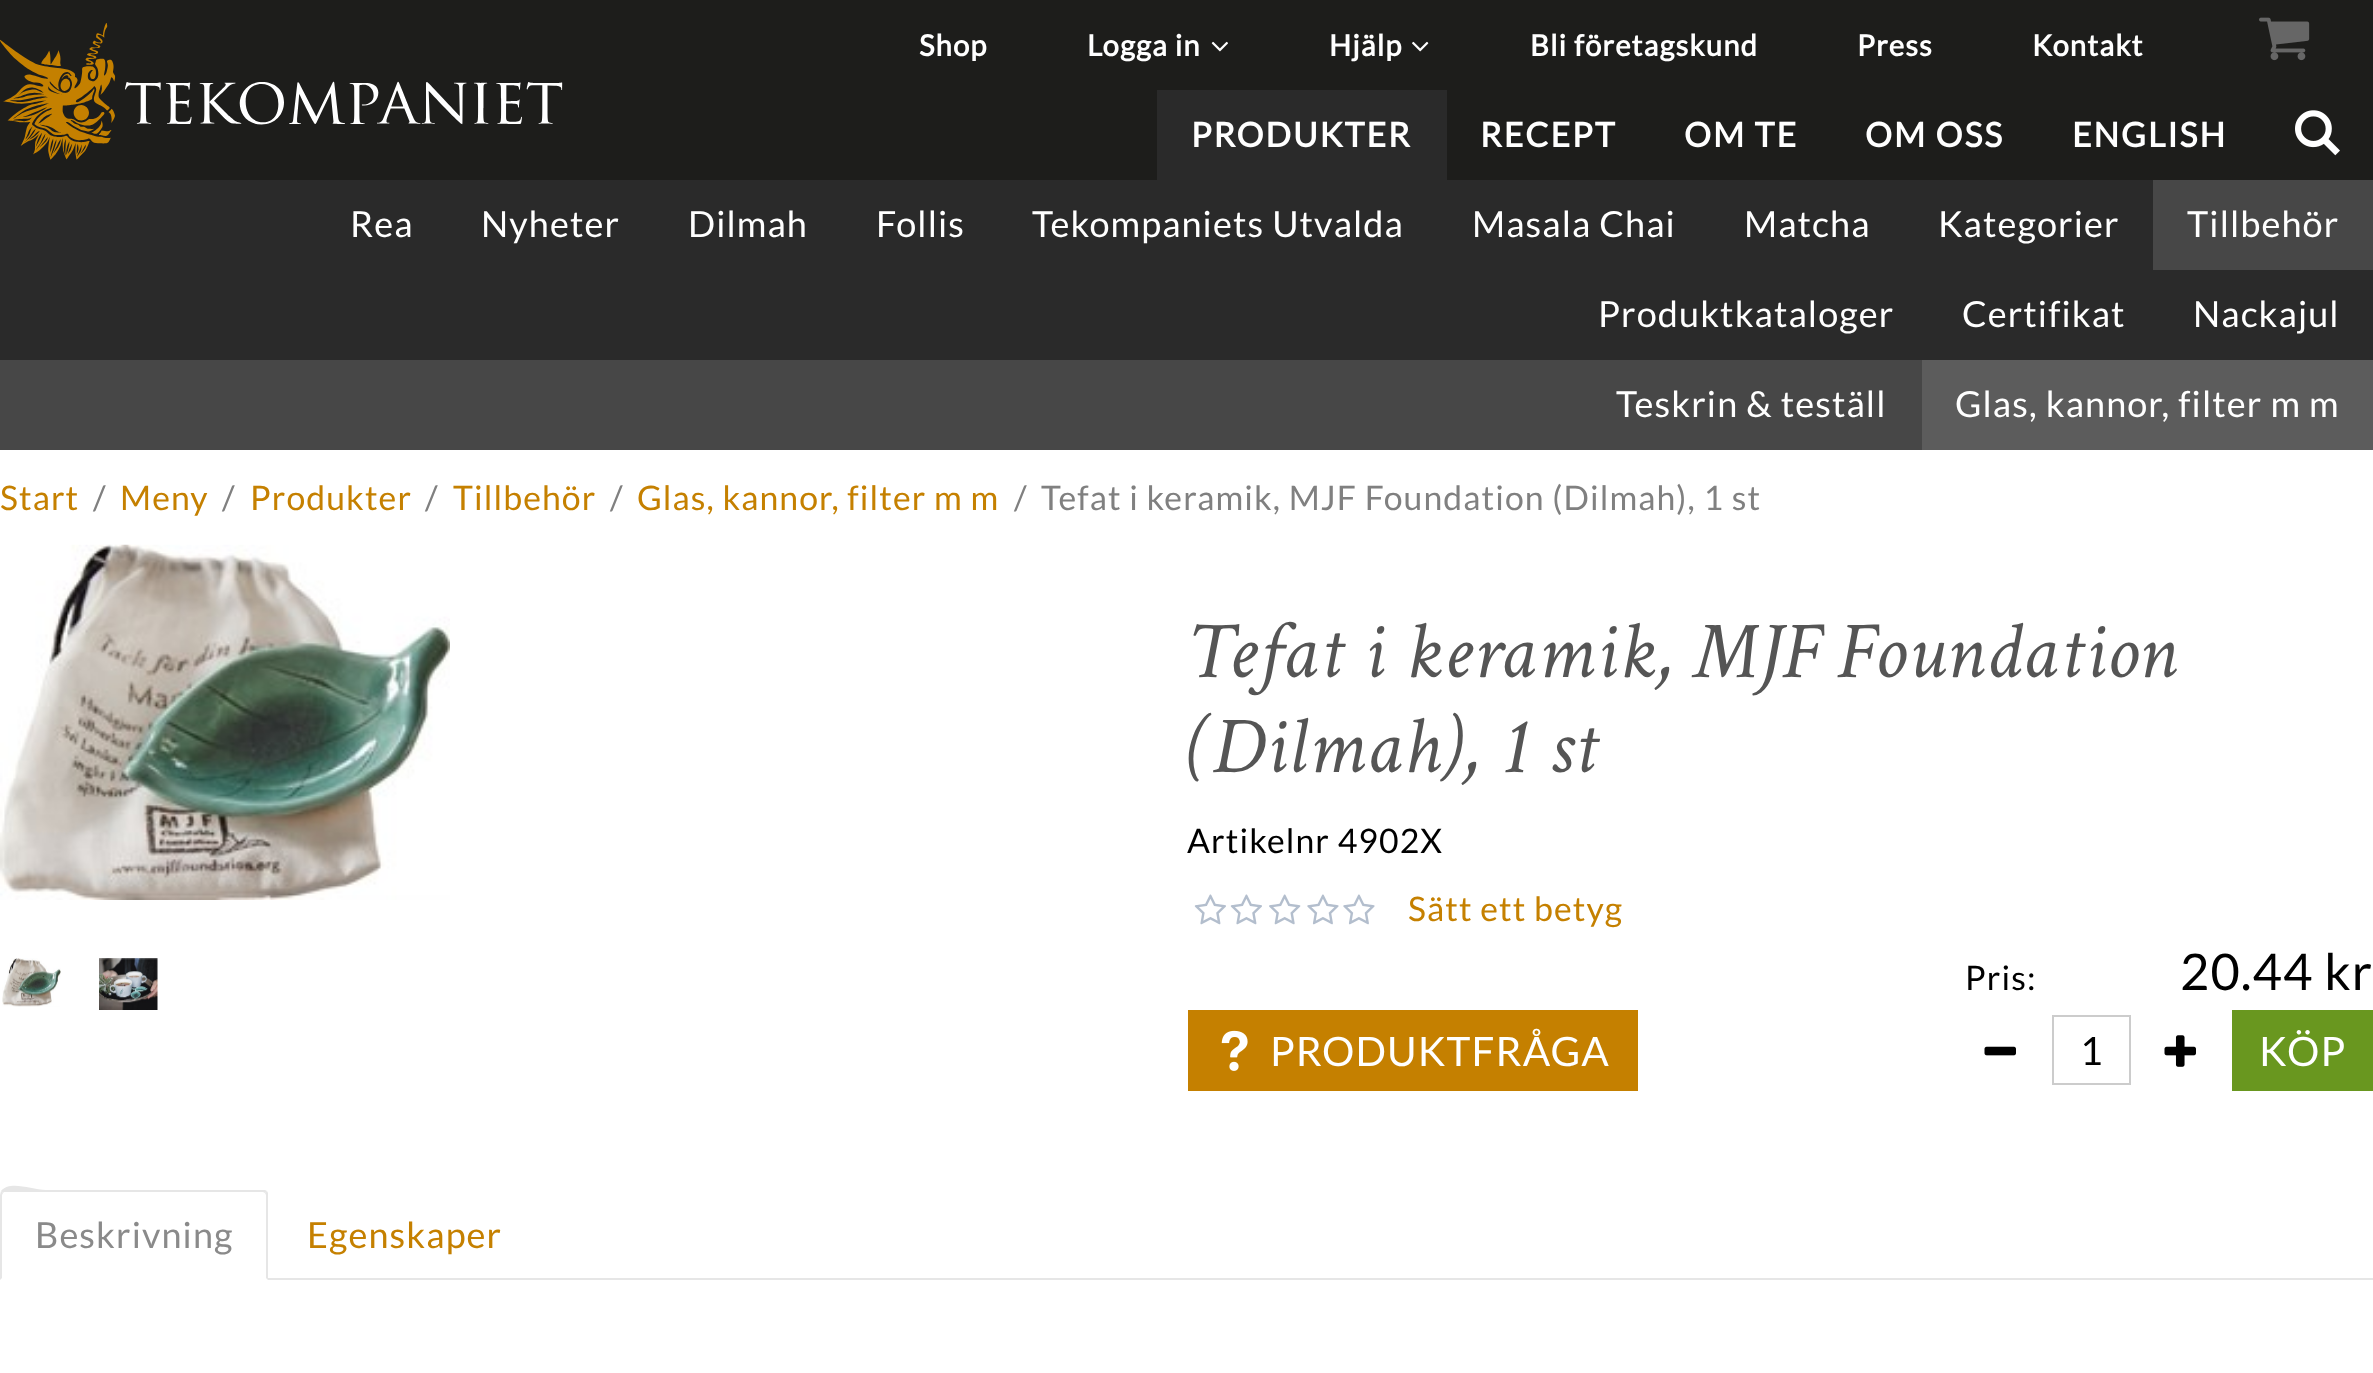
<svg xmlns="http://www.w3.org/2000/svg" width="2373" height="1373">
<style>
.a{font:bold 29.25px Lato;letter-spacing:1.1px;fill:#fff}
.b{font:bold 33.75px Lato;letter-spacing:2px;fill:#fff}
.c{font:36px Lato;letter-spacing:1.1px;fill:#fff}
.d{font:33.75px Lato;letter-spacing:1.1px;fill:#c58000}
.e{font:33.75px Lato;letter-spacing:1.1px;fill:#808080}
.f{font:italic 81px Crimson Text;letter-spacing:1.1px;fill:#555}
.g{font:33.75px Lato;letter-spacing:1.1px;fill:#000}
.h{font:50.5px Lato;letter-spacing:1.1px;fill:#000}
.i{font:40.5px Lato;letter-spacing:1.1px;fill:#fff}
.j{font:39px Lato;fill:#000}
.k{font:36px Lato;letter-spacing:1.1px;fill:#8a8a8a}
.l{font:36px Lato;letter-spacing:1.1px;fill:#c58000}
</style>
<rect width="100%" height="100%" fill="#fff"/>
<path fill="#1d1d1b" d="M0 0h2373v180H0z"/>
<image href="1.png" x="0" y="23" width="563" height="137"/>
<image href="2.png" x="1211" y="41" width="17" height="11"/>
<image href="3.png" x="1412" y="41" width="17" height="11"/>
<image href="4.png" x="2259" y="17" width="51" height="44"/>
<image href="5.png" x="2295" y="110" width="45" height="46"/>
<path fill="#2a2a2a" d="M1157 90h290v90H1157z"/>
<path fill="#2a2a2a" d="M0 180h2373v180H0z"/>
<path fill="#474747" d="M2153 180h220v90H2153z"/>
<path fill="#474747" d="M0 360h1922v90H0z"/>
<path fill="#5c5c5c" d="M1922 360h451v90H1922z"/>
<image href="6.png" x="0" y="544" width="450" height="356"/>
<image href="7.png" x="2" y="958" width="59" height="49"/>
<image href="8.png" x="99" y="958" width="59" height="52"/>
<image href="9.png" x="1194" y="894" width="32" height="31"/>
<image href="9.png" x="1230" y="894" width="32" height="31"/>
<image href="10.png" x="1269" y="894" width="32" height="31"/>
<image href="11.png" x="1307" y="894" width="32" height="31"/>
<image href="11.png" x="1343" y="894" width="32" height="31"/>
<path fill="#c58000" d="M1188 1010h450v81H1188z"/>
<image href="12.png" x="1221" y="1030" width="27" height="41"/>
<image href="13.png" x="1984" y="1046" width="32" height="10"/>
<path fill="none" stroke="#ccc" stroke-width="2" d="M2053 1016h77v68H2053z"/>
<image href="14.png" x="2164" y="1035" width="32" height="32"/>
<path fill="#69971f" d="M2232 1010h141v81H2232z"/>
<path fill="#e6e6e6" d="M268 1278h2105v2H268z"/>
<path fill="#e6e6e6" d="M4 1192l-1 1l-2-2c10-11 30-1 45-1h219l2 1l-2 2l-2-1z"/>
<path fill="#e6e6e6" d="M268 1280l-2-2v-83l-1-2l2-2l1 2z"/>
<path fill="#e6e6e6" d="M0 1195v85l2-2v-83l1-2l-2-2z"/>
<text class="a" x="919" y="56">Shop</text>
<text class="a" x="1087" y="56">Logga in</text>
<text class="a" x="1329" y="56">Hjälp</text>
<text class="a" x="1530" y="56">Bli företagskund</text>
<text class="a" x="1857" y="56">Press</text>
<text class="a" x="2032" y="56">Kontakt</text>
<text class="b" x="1191" y="147">PRODUKTER</text>
<text class="b" x="1480" y="147">RECEPT</text>
<text class="b" x="1684" y="147">OM TE</text>
<text class="b" x="1865" y="147">OM OSS</text>
<text class="b" x="2072" y="147">ENGLISH</text>
<text class="c" x="350" y="237">Rea</text>
<text class="c" x="481" y="237">Nyheter</text>
<text class="c" x="688" y="237">Dilmah</text>
<text class="c" x="876" y="237">Follis</text>
<text class="c" x="1032" y="237">Tekompaniets Utvalda</text>
<text class="c" x="1472" y="237">Masala Chai</text>
<text class="c" x="1744" y="237">Matcha</text>
<text class="c" x="1938" y="237">Kategorier</text>
<text class="c" x="2187" y="237">Tillbehör</text>
<text class="c" x="1598" y="327">Produktkataloger</text>
<text class="c" x="1962" y="327">Certifikat</text>
<text class="c" x="2193" y="327">Nackajul</text>
<text class="c" x="1616" y="417">Teskrin &amp; teställ</text>
<text class="c" x="1955" y="417">Glas, kannor, filter m m</text>
<text class="d" x="0" y="510">Start</text>
<text class="e" x="93" y="510">/</text>
<text class="d" x="120" y="510">Meny</text>
<text class="e" x="222" y="510">/</text>
<text class="d" x="250" y="510">Produkter</text>
<text class="e" x="425" y="510">/</text>
<text class="d" x="453" y="510">Tillbehör</text>
<text class="e" x="610" y="510">/</text>
<text class="d" x="637" y="510">Glas, kannor, filter m m</text>
<text class="e" x="1014" y="510">/</text>
<text class="e" x="1041" y="510">Tefat i keramik, MJF Foundation (Dilmah), 1 st</text>
<text class="f" x="1187" y="677">Tefat i keramik, MJF Foundation</text>
<text class="f" x="1187" y="772">(Dilmah), 1 st</text>
<text class="g" x="1187" y="853">Artikelnr 4902X</text>
<text class="d" x="1408" y="921">Sätt ett betyg</text>
<text class="g" x="1965" y="990">Pris:</text>
<text class="h" x="2180" y="990">20.44 kr</text>
<text class="i" x="1270" y="1066">PRODUKTFRÅGA</text>
<text class="j" x="2080" y="1065">1</text>
<text class="i" x="2259" y="1066">KÖP</text>
<text class="k" x="35" y="1248">Beskrivning</text>
<text class="l" x="307" y="1248">Egenskaper</text>
</svg>
